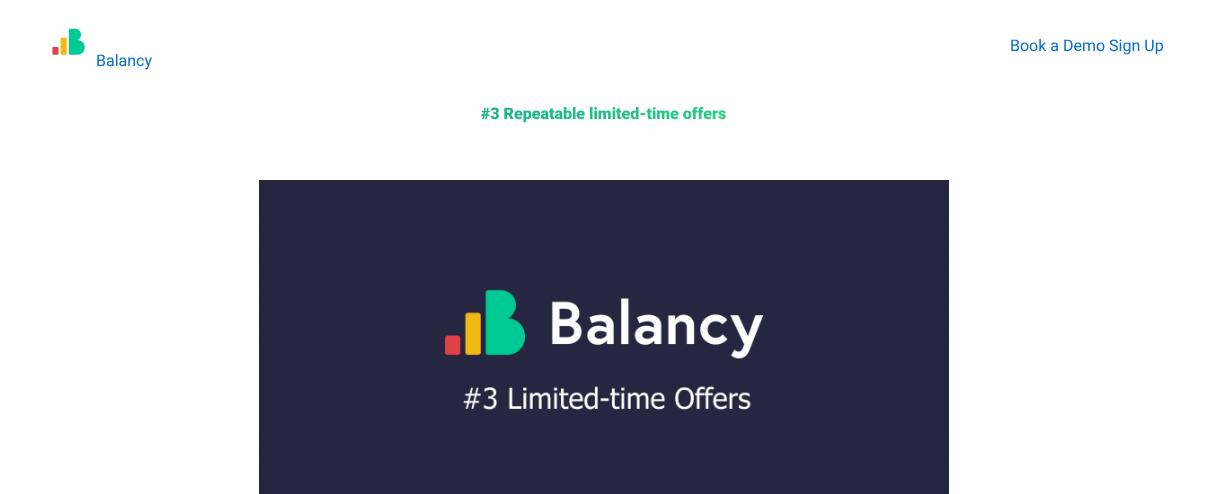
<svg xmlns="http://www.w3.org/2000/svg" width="1208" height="494">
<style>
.a{font:16px Roboto;fill:#046bd2}
.b{font:900 16px Roboto;fill:url(#g1)}
</style>
<defs>
<linearGradient id="g1" gradientUnits="userSpaceOnUse" x1="957" y1="-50" x2="251" y2="279"><stop offset="0" stop-color="#38ef7d"/><stop offset="0.91" stop-color="#11998e"/></linearGradient>
</defs>
<rect width="100%" height="100%" fill="#fff"/>
<image href="1.png" x="52" y="28" width="33" height="27"/>
<image href="2.png" x="259" y="180" width="690" height="314"/>
<text class="a" x="1010" y="51">Book a Demo Sign Up</text>
<text class="a" x="96" y="66">Balancy</text>
<text class="b" x="481" y="119">#3 Repeatable limited-time offers</text>
</svg>
